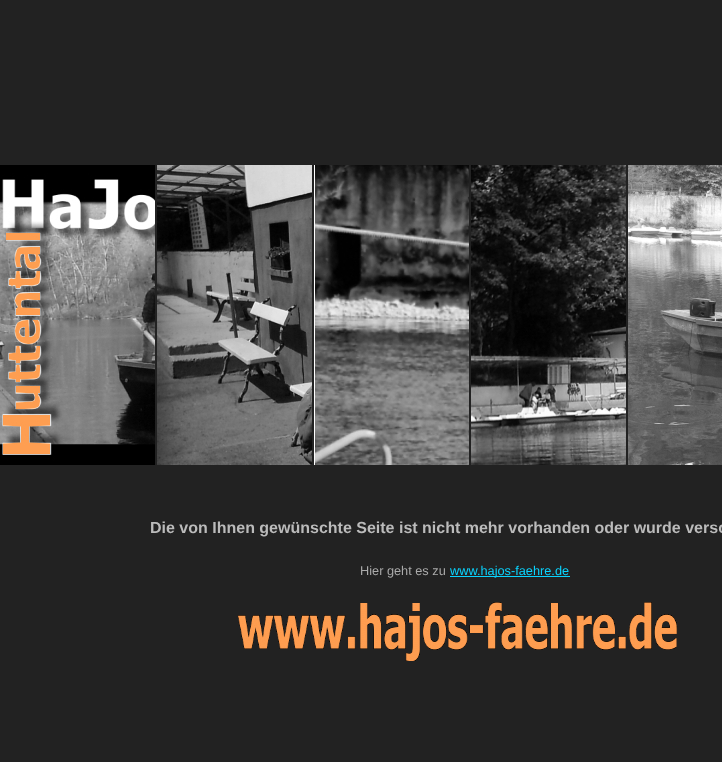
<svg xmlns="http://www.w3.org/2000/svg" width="722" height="762">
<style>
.a{font:bold 16px Liberation Sans;fill:#bbb}
.b{font:12.75px Liberation Sans;fill:#aaa}
.c{font:12.75px Liberation Sans;fill:#09d4ff}
</style>
<rect width="100%" height="100%" fill="#222"/>
<image href="1.png" x="0" y="165" width="155" height="300"/>
<image href="2.png" x="157" y="165" width="155" height="300"/>
<image href="3.png" x="314" y="165" width="155" height="300"/>
<image href="4.png" x="471" y="165" width="155" height="300"/>
<image href="5.png" x="628" y="165" width="94" height="300"/>
<path fill="#09d4ff" d="M450 576h120v1H450z"/>
<image href="6.png" x="238" y="602" width="440" height="59"/>
<text class="a" x="150" y="533">Die von Ihnen gewünschte Seite ist nicht mehr vorhanden oder wurde versc</text>
<text class="b" x="360" y="575">Hier geht es zu</text>
<text class="c" x="450" y="575">www.hajos-faehre.de</text>
</svg>
